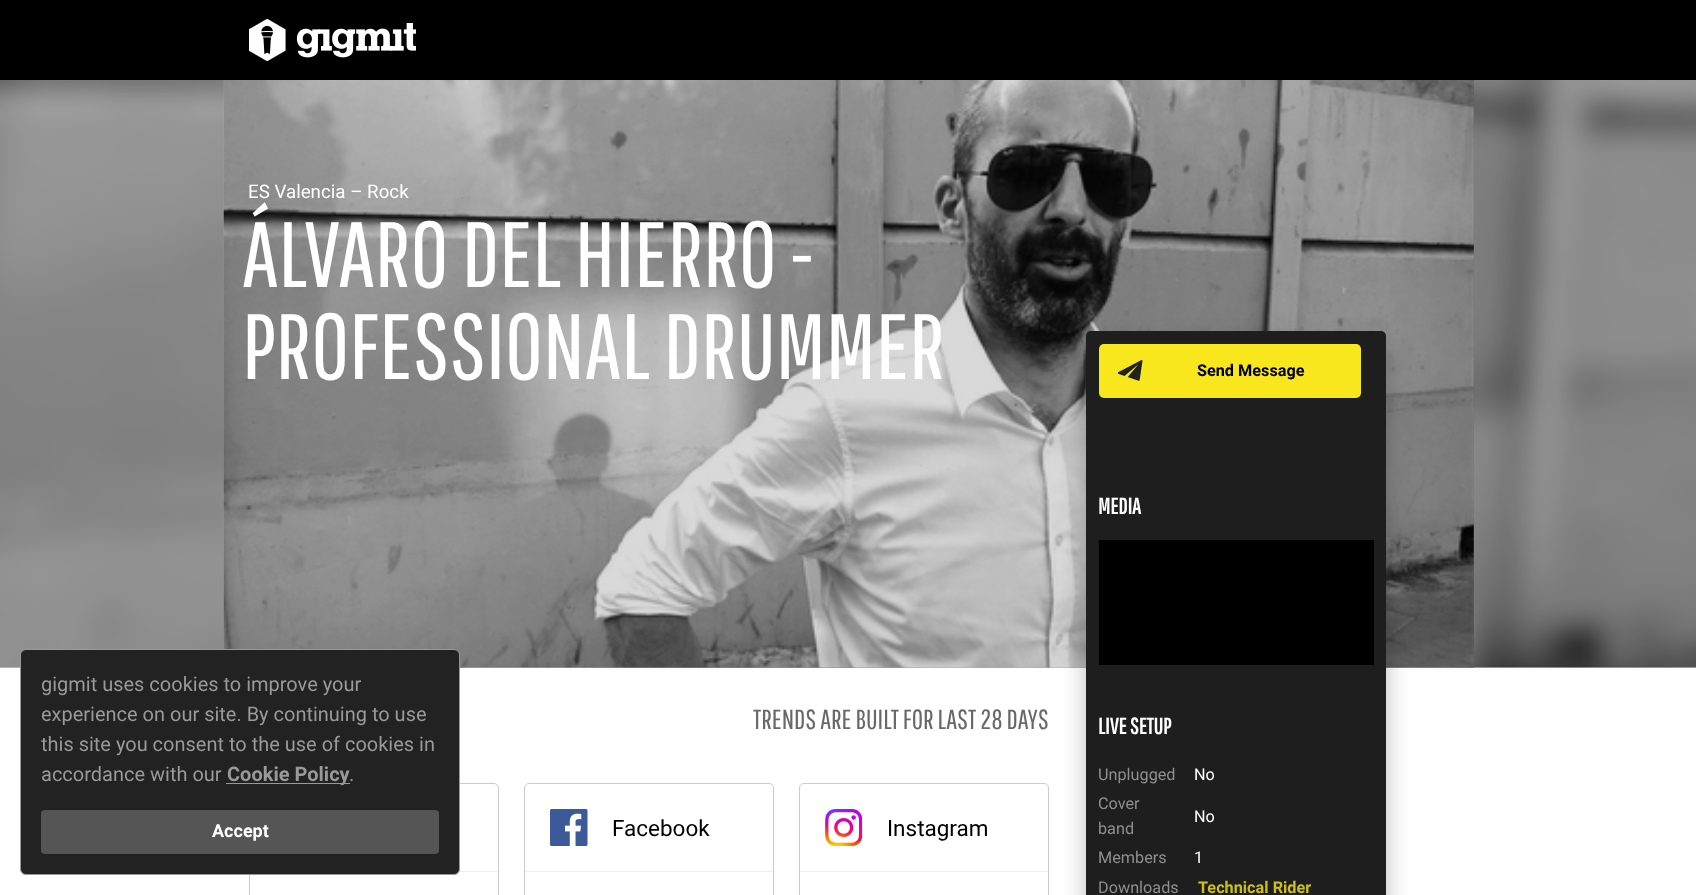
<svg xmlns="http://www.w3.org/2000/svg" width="1696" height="895">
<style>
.a{font:20px Roboto;fill:#999}
.b{font:bold 20px Roboto;fill:#999}
.c{font:bold 18px Roboto;fill:#fff}
.d{font:18.75px Roboto;fill:#fff}
.e{font:92.5px Pathway Gothic One;fill:#fff}
.f{font:27.5px Pathway Gothic One;fill:#686868}
.g{font:22.5px Roboto;fill:#000}
.h{font:bold 16.25px Roboto;fill:#000}
.i{font:bold 22.5px Pathway Gothic One;fill:#fff}
.j{font:16.25px Roboto;fill:#8f8f8f}
.k{font:16.25px Roboto;fill:#fff}
.l{font:bold 16.25px Roboto;fill:#ccbf1c}
</style>
<rect width="100%" height="100%" fill="#fff"/>
<path fill="#d9d9d9" d="M0 667h1696v1H0z"/>
<image href="2.png" x="0" y="80" width="1696" height="588"/>
<image href="3.png" x="223" y="80" width="1251" height="588"/>
<path fill="#00000026" d="M224 80h1250v588H224z"/>
<rect fill="none" stroke="#ccc" x="249.5" y="783.5" width="249" height="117" rx="4.5"/>
<path fill="#eee" d="M459 871h39v1H459z"/>
<rect fill="#222" stroke="#999" x="20.5" y="649.5" width="439" height="225" rx="5.5"/>
<path fill="#999" d="M226 783h124v1H226z"/>
<rect fill="#555" x="41" y="810" width="398" height="44" rx="4"/>
<path fill="#000" d="M0 0h1696v80H0z"/>
<image href="1.png" x="249" y="19" width="167" height="42"/>
<rect fill="none" stroke="#ccc" x="524.5" y="783.5" width="249" height="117" rx="4.5"/>
<image href="4.png" x="550" y="809" width="38" height="37"/>
<path fill="#eee" d="M525 871h248v1H525z"/>
<rect fill="none" stroke="#ccc" x="799.5" y="783.5" width="249" height="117" rx="4.5"/>
<image href="5.png" x="825" y="809" width="38" height="37"/>
<path fill="#eee" d="M800 871h248v1H800z"/>
<rect fill="#00000040" filter="blur(12.5px)" x="1086" y="344" width="300" height="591" rx="5"/>
<rect fill="#1e1e1e" x="1086" y="331" width="300" height="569" rx="5"/>
<rect fill="#f8e71c" x="1099" y="344" width="262" height="54" rx="5"/>
<image href="6.png" x="1118" y="360" width="25" height="21"/>
<path fill="#000" d="M1099 540h275v125H1099z"/>
<text class="a" x="41" y="691">gigmit uses cookies to improve your</text>
<text class="a" x="41" y="721">experience on our site. By continuing to use</text>
<text class="a" x="41" y="751">this site you consent to the use of cookies in</text>
<text class="a" x="41" y="781">accordance with our</text>
<text class="b" x="227" y="781">Cookie Policy</text>
<text class="a" x="349" y="781">.</text>
<text class="c" x="212" y="837">Accept</text>
<text class="d" x="248" y="198">ES Valencia – Rock</text>
<text class="e" x="242" y="287">ÁLVARO DEL HIERRO -</text>
<text class="e" x="242" y="379">PROFESSIONAL DRUMMER</text>
<text class="f" x="753" y="729">TRENDS ARE BUILT FOR LAST 28 DAYS</text>
<text class="g" x="612" y="836">Facebook</text>
<text class="g" x="887" y="836">Instagram</text>
<text class="h" x="1197" y="376">Send Message</text>
<text class="i" x="1098" y="514">MEDIA</text>
<text class="i" x="1098" y="734">LIVE SETUP</text>
<text class="j" x="1098" y="780">Unplugged</text>
<text class="k" x="1194" y="780">No</text>
<text class="j" x="1098" y="809">Cover</text>
<text class="j" x="1098" y="834">band</text>
<text class="k" x="1194" y="822">No</text>
<text class="j" x="1098" y="863">Members</text>
<text class="k" x="1194" y="863">1</text>
<text class="j" x="1098" y="893">Downloads</text>
<text class="l" x="1198" y="893">Technical Rider</text>
</svg>
